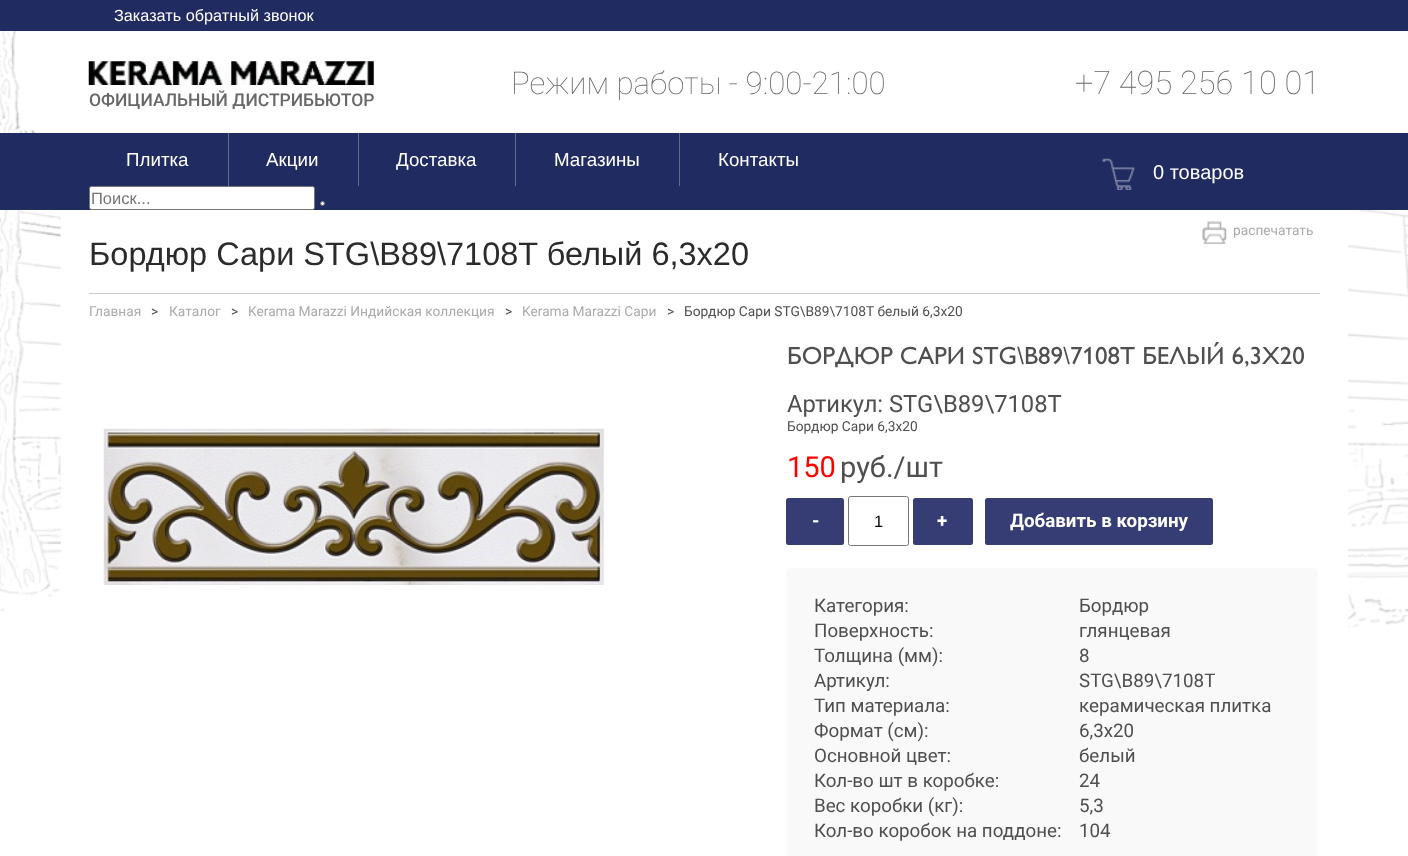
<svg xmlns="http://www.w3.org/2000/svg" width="1408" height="856">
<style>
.a{font:16.25px Liberation Sans;fill:#fff}
.b{font:100 31.25px Roboto;fill:#676767}
.c{font:100 32.5px Roboto;fill:#676767}
.d{font:500 17.5px Roboto;fill:#676767}
.e{font:18.75px Liberation Sans;fill:#fff}
.f{font:20px Liberation Sans;fill:#fff}
.g{font:16.5px Liberation Sans;fill:#757575}
.h{font:13.75px Roboto;fill:#aaa}
.i{font:32.5px Liberation Sans;fill:#2b2b2b}
.j{font:13.75px Roboto;fill:#4f4f4f}
.k{font:25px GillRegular;fill:#4f4f4f}
.l{font:23.75px Roboto;fill:#4f4f4f}
.m{font:29px Roboto;fill:#f00}
.n{font:29px Roboto;fill:#4f4f4f}
.o{font:bold 18.75px Roboto;fill:#fff}
.p{font:16.5px Liberation Sans;fill:#000}
.q{font:18.75px Roboto;fill:#4f4f4f}
</style>
<rect width="100%" height="100%" fill="#fff"/>
<image href="1.png" x="0" y="31" width="1408" height="597"/>
<path fill="#202b62" d="M0 0h1408v31H0z"/>
<image href="2.png" x="88" y="61" width="286" height="24"/>
<path fill="#202b62" d="M0 133h1408v77H0z"/>
<path fill="#232a55" d="M226 133h1v53H226z"/>
<path fill="#232a55" d="M356 133h1v53H356z"/>
<path fill="#636b91" d="M228 133h1v53H228z"/>
<path fill="#232a55" d="M514 133h1v53H514z"/>
<path fill="#636b91" d="M358 133h1v53H358z"/>
<path fill="#232a55" d="M678 133h1v53H678z"/>
<path fill="#636b91" d="M515 133h1v53H515z"/>
<path fill="#636b91" d="M679 133h1v53H679z"/>
<image href="3.png" x="1102" y="158" width="33" height="32"/>
<rect fill="#fff" stroke="#767676" x="89.5" y="186.5" width="225" height="23" rx="2"/>
<circle fill="#efefef" stroke="#767676" cx="322.5" cy="203.5" r="2"/>
<path fill="#ccc" d="M89 293h1231v1H89z"/>
<image href="4.png" x="1202" y="221" width="25" height="23"/>
<image href="5.png" x="103" y="428" width="501" height="157"/>
<rect fill="#363d74" x="786" y="498" width="58" height="47" rx="2.5"/>
<rect fill="none" stroke="#767676" x="848.5" y="496.5" width="60" height="49" rx="2"/>
<rect fill="#363d74" x="913" y="498" width="60" height="47" rx="2.5"/>
<rect fill="#363d74" x="985" y="498" width="228" height="47" rx="2.5"/>
<rect fill="#f9f9f9" x="786" y="568" width="532" height="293" rx="5"/>
<text class="a" x="114" y="21">Заказать обратный звонок</text>
<text class="b" x="511" y="94">Режим работы - 9:00-21:00</text>
<text class="c" x="1075" y="94">+7 495 256 10 01</text>
<text class="d" x="89" y="106">ОФИЦИАЛЬНЫЙ ДИСТРИБЬЮТОР</text>
<text class="e" x="126" y="166">Плитка</text>
<text class="e" x="266" y="166">Акции</text>
<text class="e" x="396" y="166">Доставка</text>
<text class="e" x="554" y="166">Магазины</text>
<text class="e" x="718" y="166">Контакты</text>
<text class="f" x="1153" y="179">0 товаров</text>
<text class="g" x="91" y="204">Поиск...</text>
<text class="h" x="1233" y="235">распечатать</text>
<text class="i" x="89" y="265">Бордюр Сари STG\B89\7108T белый 6,3х20</text>
<text class="h" x="89" y="316">Главная</text>
<text class="j" x="151" y="316">&gt;</text>
<text class="h" x="169" y="316">Каталог</text>
<text class="j" x="231" y="316">&gt;</text>
<text class="h" x="248" y="316">Kerama Marazzi Индийская коллекция</text>
<text class="j" x="505" y="316">&gt;</text>
<text class="h" x="522" y="316">Kerama Marazzi Сари</text>
<text class="j" x="667" y="316">&gt;</text>
<text class="j" x="684" y="316">Бордюр Сари STG\B89\7108T белый 6,3х20</text>
<text class="k" x="787" y="364">БОРДЮР САРИ STG\B89\7108T БЕЛЫЙ 6,3Х20</text>
<text class="l" x="787" y="412">Артикул: STG\B89\7108T</text>
<text class="j" x="787" y="431">Бордюр Сари 6,3х20</text>
<text class="m" x="787" y="477">150</text>
<text class="n" x="840" y="477">руб./шт</text>
<text class="o" x="812" y="527">-</text>
<text class="p" x="874" y="527">1</text>
<text class="o" x="937" y="527">+</text>
<text class="o" x="1010" y="527">Добавить в корзину</text>
<text class="q" x="814" y="612">Категория:</text>
<text class="q" x="1079" y="612">Бордюр</text>
<text class="q" x="814" y="637">Поверхность:</text>
<text class="q" x="1079" y="637">глянцевая</text>
<text class="q" x="814" y="662">Толщина (мм):</text>
<text class="q" x="1079" y="662">8</text>
<text class="q" x="814" y="687">Артикул:</text>
<text class="q" x="1079" y="687">STG\B89\7108T</text>
<text class="q" x="814" y="712">Тип материала:</text>
<text class="q" x="1079" y="712">керамическая плитка</text>
<text class="q" x="814" y="737">Формат (см):</text>
<text class="q" x="1079" y="737">6,3х20</text>
<text class="q" x="814" y="762">Основной цвет:</text>
<text class="q" x="1079" y="762">белый</text>
<text class="q" x="814" y="787">Кол-во шт в коробке:</text>
<text class="q" x="1079" y="787">24</text>
<text class="q" x="814" y="812">Вес коробки (кг):</text>
<text class="q" x="1079" y="812">5,3</text>
<text class="q" x="814" y="837">Кол-во коробок на поддоне:</text>
<text class="q" x="1079" y="837">104</text>
</svg>
